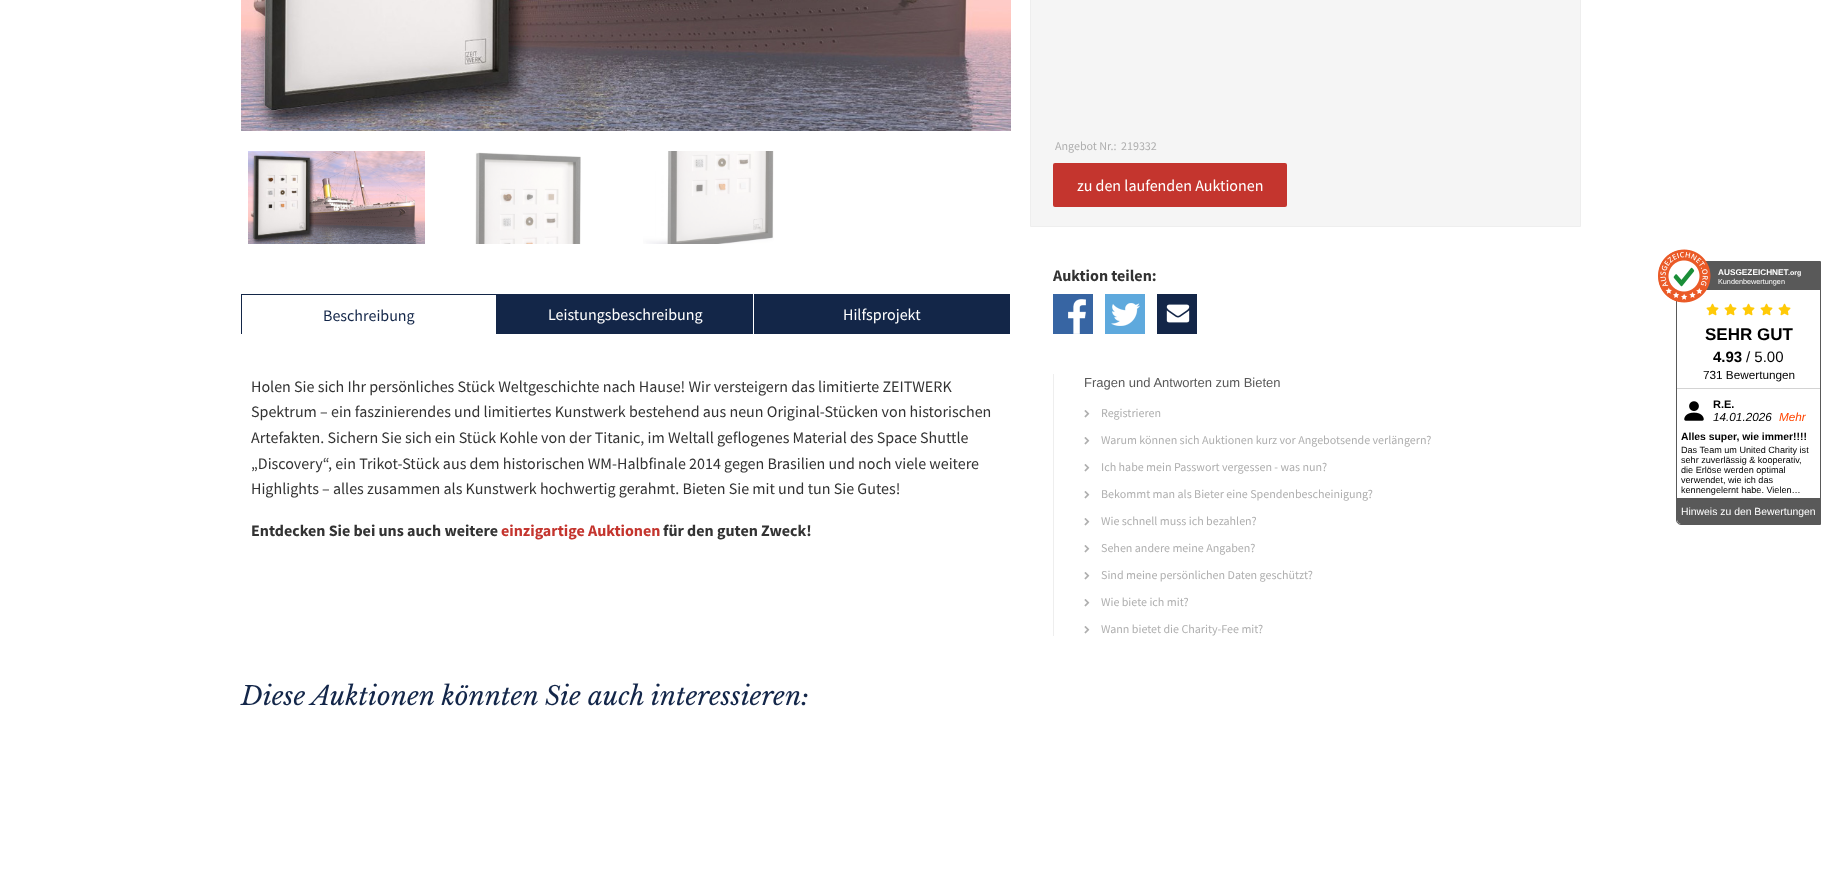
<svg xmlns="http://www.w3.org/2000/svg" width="1821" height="870">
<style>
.a{font:12px Source Sans Pro;fill:#afafaf}
.b{font:16px Source Sans Pro;fill:#fff}
.c{font:16px Source Sans Pro;fill:#132649}
.d{font:16px Source Sans Pro;fill:#333}
.e{font:bold 16px Source Sans Pro;fill:#333}
.f{font:bold 16px Source Sans Pro;fill:#c4352e}
.g{font:13px Liberation Sans;fill:#595959}
.h{font:italic 26px Libre Baskerville;fill:#132649}
.i{font:bold 8.25px Liberation Sans;fill:#fff}
.j{font:bold 7px Liberation Sans;fill:#fff}
.k{font:7.25px Liberation Sans;fill:#fff}
.l{font:bold 17px Liberation Sans;fill:#000}
.m{font:bold 15px Liberation Sans;fill:#000}
.n{font:15px Liberation Sans;fill:#000}
.o{font:11.75px Liberation Sans;fill:#000}
.p{font:bold 11px Liberation Sans;fill:#000}
.q{font:italic 11.75px Liberation Sans;fill:#000}
.r{font:italic 11.75px Liberation Sans;fill:#ff4500}
.s{font:bold 10.4px Liberation Sans;fill:#000}
.t{font:9.1px Liberation Sans;fill:#000}
.u{font:10.4px Liberation Sans;fill:#fff}
</style>
<rect width="100%" height="100%" fill="#fff"/>
<image href="1.png" x="241" y="0" width="770" height="131"/>
<image href="2.png" x="248" y="151" width="177" height="93"/>
<image href="3.png" x="475" y="152" width="106" height="92"/>
<image href="4.png" x="643" y="151" width="131" height="93"/>
<path fill="#f5f5f5" stroke="#eee" d="M1030.5 -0.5h550v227H1030.5z"/>
<rect fill="#c4352e" x="1053" y="163" width="234" height="44" rx="2"/>
<path fill="#132648" d="M241 294h256v1H241z"/>
<path fill="#132648" d="M496 294h257v40H496z"/>
<path fill="#132648" d="M241 294h1v40H241z"/>
<path fill="#132648" d="M754 294h256v40H754z"/>
<image href="5.png" x="1053" y="294" width="40" height="40"/>
<image href="6.png" x="1105" y="294" width="40" height="40"/>
<image href="7.png" x="1157" y="294" width="40" height="40"/>
<path fill="#eee" d="M1053 374h1v262H1053z"/>
<image href="8.png" x="1084" y="410" width="6" height="8"/>
<image href="8.png" x="1084" y="437" width="6" height="8"/>
<image href="8.png" x="1084" y="464" width="6" height="8"/>
<image href="8.png" x="1084" y="491" width="6" height="8"/>
<image href="8.png" x="1084" y="518" width="6" height="8"/>
<image href="8.png" x="1084" y="545" width="6" height="8"/>
<image href="8.png" x="1084" y="572" width="6" height="8"/>
<image href="8.png" x="1084" y="599" width="6" height="8"/>
<image href="8.png" x="1084" y="626" width="6" height="8"/>
<path fill="none" stroke="#595959" d="M1681 261.5h139.5v263h-139.5c-2.5 0-4.5-2-4.5-4.5v-254c0-2.5 2-4.5 4.5-4.5z"/>
<path fill="#595959" d="M1706 262h114v28H1706z"/>
<image href="9.png" x="1658" y="249" width="53" height="54"/>
<image href="10.png" x="1706" y="303" width="13" height="13"/>
<image href="10.png" x="1724" y="303" width="13" height="13"/>
<image href="10.png" x="1742" y="303" width="13" height="13"/>
<image href="10.png" x="1760" y="303" width="13" height="13"/>
<image href="10.png" x="1778" y="303" width="13" height="13"/>
<path fill="#d3d3d3" d="M1677 388h143v1H1677z"/>
<image href="11.png" x="1684" y="401" width="20" height="20"/>
<path fill="#595959" d="M1677 498h143v26h-138c-3 0-5-2-5-5z"/>
<text class="a" x="1055" y="150">Angebot Nr.:</text>
<text class="a" x="1121" y="150">219332</text>
<text class="b" x="1077" y="191">zu den laufenden Auktionen</text>
<text class="c" x="323" y="321">Beschreibung</text>
<text class="b" x="548" y="320">Leistungsbeschreibung</text>
<text class="b" x="843" y="320">Hilfsprojekt</text>
<text class="d" x="251" y="392">Holen Sie sich Ihr persönliches Stück Weltgeschichte nach Hause! Wir versteigern das limitierte ZEITWERK</text>
<text class="d" x="251" y="417">Spektrum – ein faszinierendes und limitiertes Kunstwerk bestehend aus neun Original-Stücken von historischen</text>
<text class="d" x="251" y="443">Artefakten. Sichern Sie sich ein Stück Kohle von der Titanic, im Weltall geflogenes Material des Space Shuttle</text>
<text class="d" x="251" y="469">„Discovery“, ein Trikot-Stück aus dem historischen WM-Halbfinale 2014 gegen Brasilien und noch viele weitere</text>
<text class="d" x="251" y="494">Highlights – alles zusammen als Kunstwerk hochwertig gerahmt. Bieten Sie mit und tun Sie Gutes!</text>
<text class="e" x="251" y="536">Entdecken Sie bei uns auch weitere</text>
<text class="f" x="501" y="536">einzigartige Auktionen</text>
<text class="e" x="663" y="536">für den guten Zweck!</text>
<text class="e" x="1053" y="281">Auktion teilen:</text>
<text class="g" x="1084" y="387">Fragen und Antworten zum Bieten</text>
<text class="a" x="1101" y="417">Registrieren</text>
<text class="a" x="1101" y="444">Warum können sich Auktionen kurz vor Angebotsende verlängern?</text>
<text class="a" x="1101" y="471">Ich habe mein Passwort vergessen - was nun?</text>
<text class="a" x="1101" y="498">Bekommt man als Bieter eine Spendenbescheinigung?</text>
<text class="a" x="1101" y="525">Wie schnell muss ich bezahlen?</text>
<text class="a" x="1101" y="552">Sehen andere meine Angaben?</text>
<text class="a" x="1101" y="579">Sind meine persönlichen Daten geschützt?</text>
<text class="a" x="1101" y="606">Wie biete ich mit?</text>
<text class="a" x="1101" y="633">Wann bietet die Charity-Fee mit?</text>
<text class="h" x="241" y="705">Diese Auktionen könnten Sie auch interessieren:</text>
<text class="i" x="1718" y="275">AUSGEZEICHNET</text>
<text class="j" x="1788" y="275">.org</text>
<text class="k" x="1718" y="284">Kundenbewertungen</text>
<text class="l" x="1705" y="340">SEHR GUT</text>
<text class="m" x="1713" y="362">4.93</text>
<text class="n" x="1746" y="362">/ 5.00</text>
<text class="o" x="1703" y="379">731 Bewertungen</text>
<text class="p" x="1713" y="408">R.E.</text>
<text class="q" x="1713" y="421">14.01.2026</text>
<text class="r" x="1779" y="421">Mehr</text>
<text class="s" x="1681" y="440">Alles super, wie immer!!!!</text>
<text class="t" x="1681" y="453">Das Team um United Charity ist</text>
<text class="t" x="1681" y="463">sehr zuverlässig &amp; kooperativ,</text>
<text class="t" x="1681" y="473">die Erlöse werden optimal</text>
<text class="t" x="1681" y="483">verwendet, wie ich das</text>
<text class="t" x="1681" y="493">kennengelernt habe. Vielen…</text>
<text class="u" x="1681" y="515">Hinweis zu den Bewertungen</text>
</svg>
